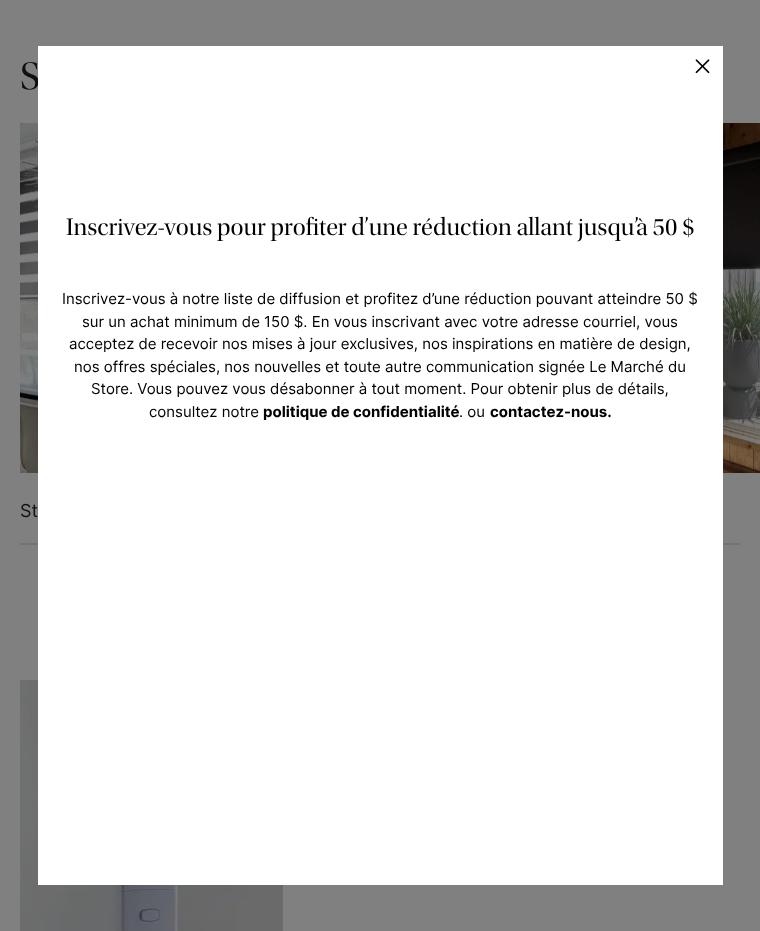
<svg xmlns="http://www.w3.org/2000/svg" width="760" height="931">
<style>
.a{font:40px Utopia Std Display;fill:#101010}
.b{font:18px Inter;fill:#101010}
.c{font:25px Utopia Std Display;fill:#000}
.d{font:15px Inter;fill:#000}
.e{font:bold 15px Inter;fill:#000}
</style>
<rect width="100%" height="100%" fill="#808080"/>
<image href="1.png" x="723" y="123" width="37" height="350"/>
<image href="2.png" x="20" y="123" width="18" height="350"/>
<path fill="#737373" d="M20 543h720v2H20z"/>
<image href="3.png" x="20" y="680" width="263" height="251"/>
<text class="a" x="20" y="89">S</text>
<text class="b" x="20" y="517">St</text>
<path fill="#fff" d="M38 46h685v839H38z"/>
<image href="4.png" x="695" y="59" width="15" height="15"/>
<text class="c" x="66" y="235">Inscrivez-vous pour profiter d’une réduction allant jusqu’à 50 $</text>
<text class="d" x="62" y="304">Inscrivez-vous à notre liste de diffusion et profitez d’une réduction pouvant atteindre 50 $</text>
<text class="d" x="82" y="327">sur un achat minimum de 150 $. En vous inscrivant avec votre adresse courriel, vous</text>
<text class="d" x="69" y="349">acceptez de recevoir nos mises à jour exclusives, nos inspirations en matière de design,</text>
<text class="d" x="74" y="372">nos offres spéciales, nos nouvelles et toute autre communication signée Le Marché du</text>
<text class="d" x="91" y="394">Store. Vous pouvez vous désabonner à tout moment. Pour obtenir plus de détails,</text>
<text class="d" x="149" y="417">consultez notre</text>
<text class="e" x="263" y="417">politique de confidentialité</text>
<text class="d" x="459" y="417">. ou</text>
<text class="e" x="490" y="417">contactez-nous.</text>
</svg>
